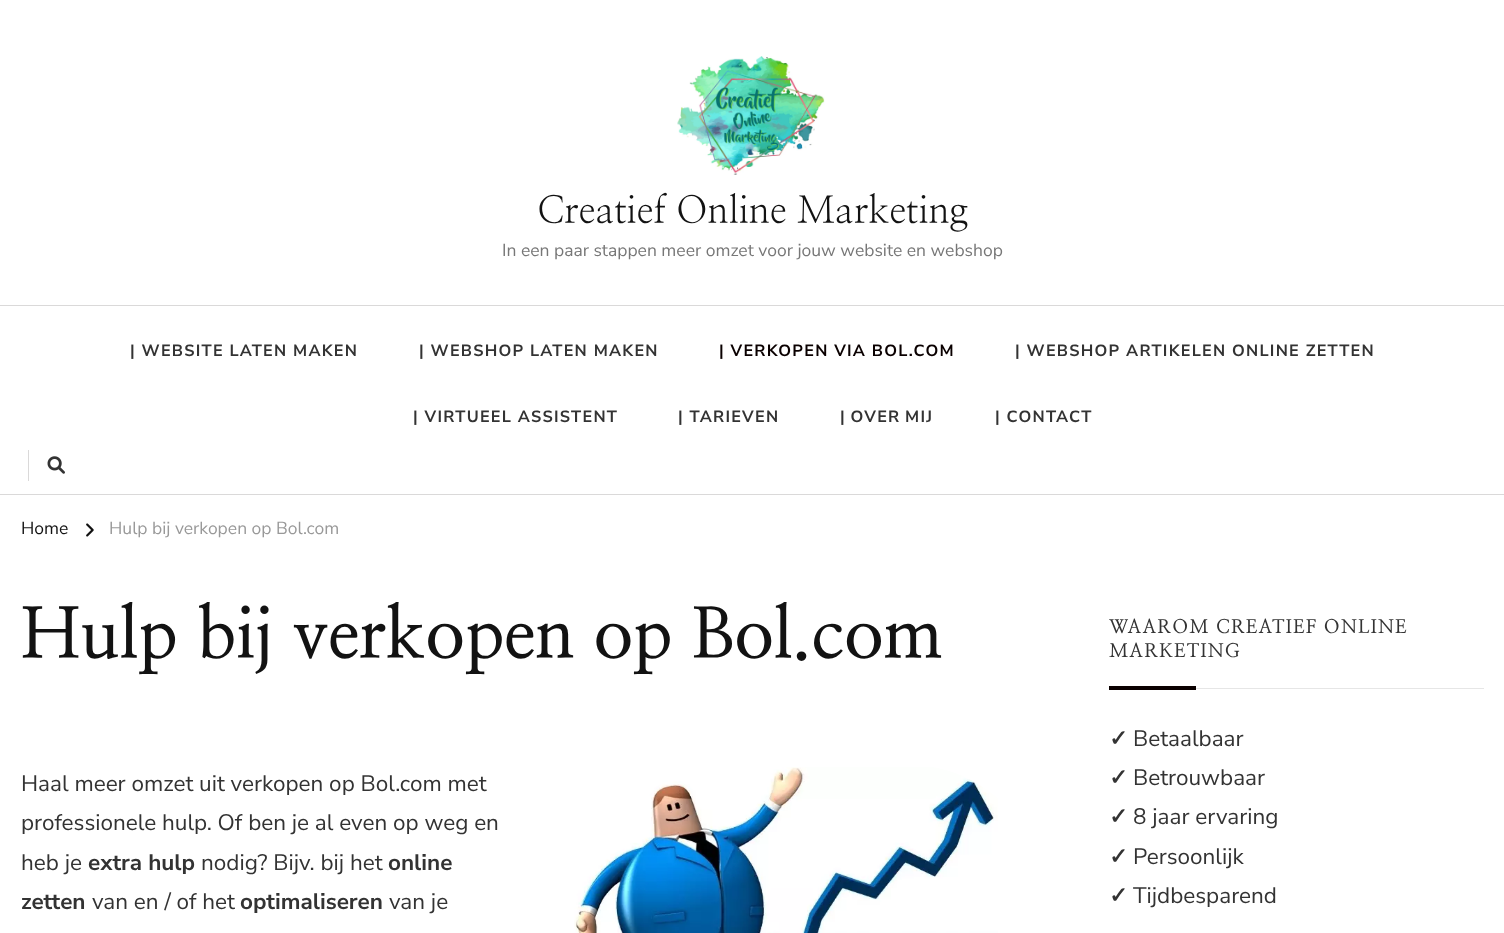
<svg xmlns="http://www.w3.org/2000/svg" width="1504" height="933">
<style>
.a{font:37.5px NanumMyeongjo;fill:#121212}
.b{font:17.5px Nunito Sans;fill:#777}
.c{font:bold 16.25px Nunito Sans;letter-spacing:1.25px;fill:#333}
.d{font:bold 16.25px Nunito Sans;letter-spacing:1.25px;fill:#0a0000}
.e{font:17.5px Nunito Sans;fill:#121212}
.f{font:17.5px Nunito Sans;fill:#999}
.g{font:bold 70px NanumMyeongjo;fill:#121212}
.h{font:22.5px Nunito Sans;fill:#333}
.i{font:bold 22.5px Nunito Sans;fill:#333}
.j{font:bold 18.75px NanumMyeongjo;letter-spacing:1.25px;fill:#333}
.k{font:bold 22.5px DejaVu Sans;fill:#333}
</style>
<rect width="100%" height="100%" fill="#fff"/>
<image href="1.png" x="677" y="56" width="148" height="119"/>
<path fill="#dad9d9" d="M0 305h1504v1H0z"/>
<path fill="#dad9d9" d="M0 494h1504v1H0z"/>
<path fill="#dad9d9" d="M28 450h1v31H28z"/>
<image href="2.png" x="47" y="456" width="18" height="18"/>
<image href="3.png" x="86" y="523" width="8" height="14"/>
<image href="4.png" x="574" y="767" width="424" height="166"/>
<path fill="#e6e6e6" d="M1196 688h288v1H1196z"/>
<path fill="#0a0000" d="M1109 686h87v4H1109z"/>
<text class="a" x="537" y="223">Creatief Online Marketing</text>
<text class="b" x="502" y="256">In een paar stappen meer omzet voor jouw website en webshop</text>
<text class="c" x="130" y="356">| WEBSITE LATEN MAKEN</text>
<text class="c" x="419" y="356">| WEBSHOP LATEN MAKEN</text>
<text class="d" x="719" y="356">| VERKOPEN VIA BOL.COM</text>
<text class="c" x="1015" y="356">| WEBSHOP ARTIKELEN ONLINE ZETTEN</text>
<text class="c" x="413" y="422">| VIRTUEEL ASSISTENT</text>
<text class="c" x="678" y="422">| TARIEVEN</text>
<text class="c" x="840" y="422" word-spacing="-1">| OVER MIJ</text>
<text class="c" x="995" y="422">| CONTACT</text>
<text class="e" x="21" y="534">Home</text>
<text class="f" x="109" y="534">Hulp bij verkopen op Bol.com</text>
<text class="g" x="21" y="658">Hulp bij verkopen op Bol.com</text>
<text class="h" x="21" y="791">Haal meer omzet uit verkopen op Bol.com met</text>
<text class="h" x="21" y="830">professionele hulp. Of ben je al even op weg en</text>
<text class="h" x="21" y="870">heb je</text>
<text class="i" x="88" y="870">extra hulp</text>
<text class="h" x="201" y="870">nodig? Bijv. bij het</text>
<text class="i" x="388" y="870">online</text>
<text class="i" x="21" y="909">zetten</text>
<text class="h" x="92" y="909">van en / of het</text>
<text class="i" x="240" y="909">optimaliseren</text>
<text class="h" x="389" y="909">van je</text>
<text class="j" x="1109" y="633">WAAROM CREATIEF ONLINE</text>
<text class="j" x="1109" y="657">MARKETING</text>
<text class="k" x="1109" y="746">✓</text>
<text class="h" x="1133" y="746">Betaalbaar</text>
<text class="k" x="1109" y="785">✓</text>
<text class="h" x="1133" y="785">Betrouwbaar</text>
<text class="k" x="1109" y="824">✓</text>
<text class="h" x="1133" y="824">8 jaar ervaring</text>
<text class="k" x="1109" y="864">✓</text>
<text class="h" x="1133" y="864">Persoonlijk</text>
<text class="k" x="1109" y="903">✓</text>
<text class="h" x="1133" y="903">Tijdbesparend</text>
</svg>
